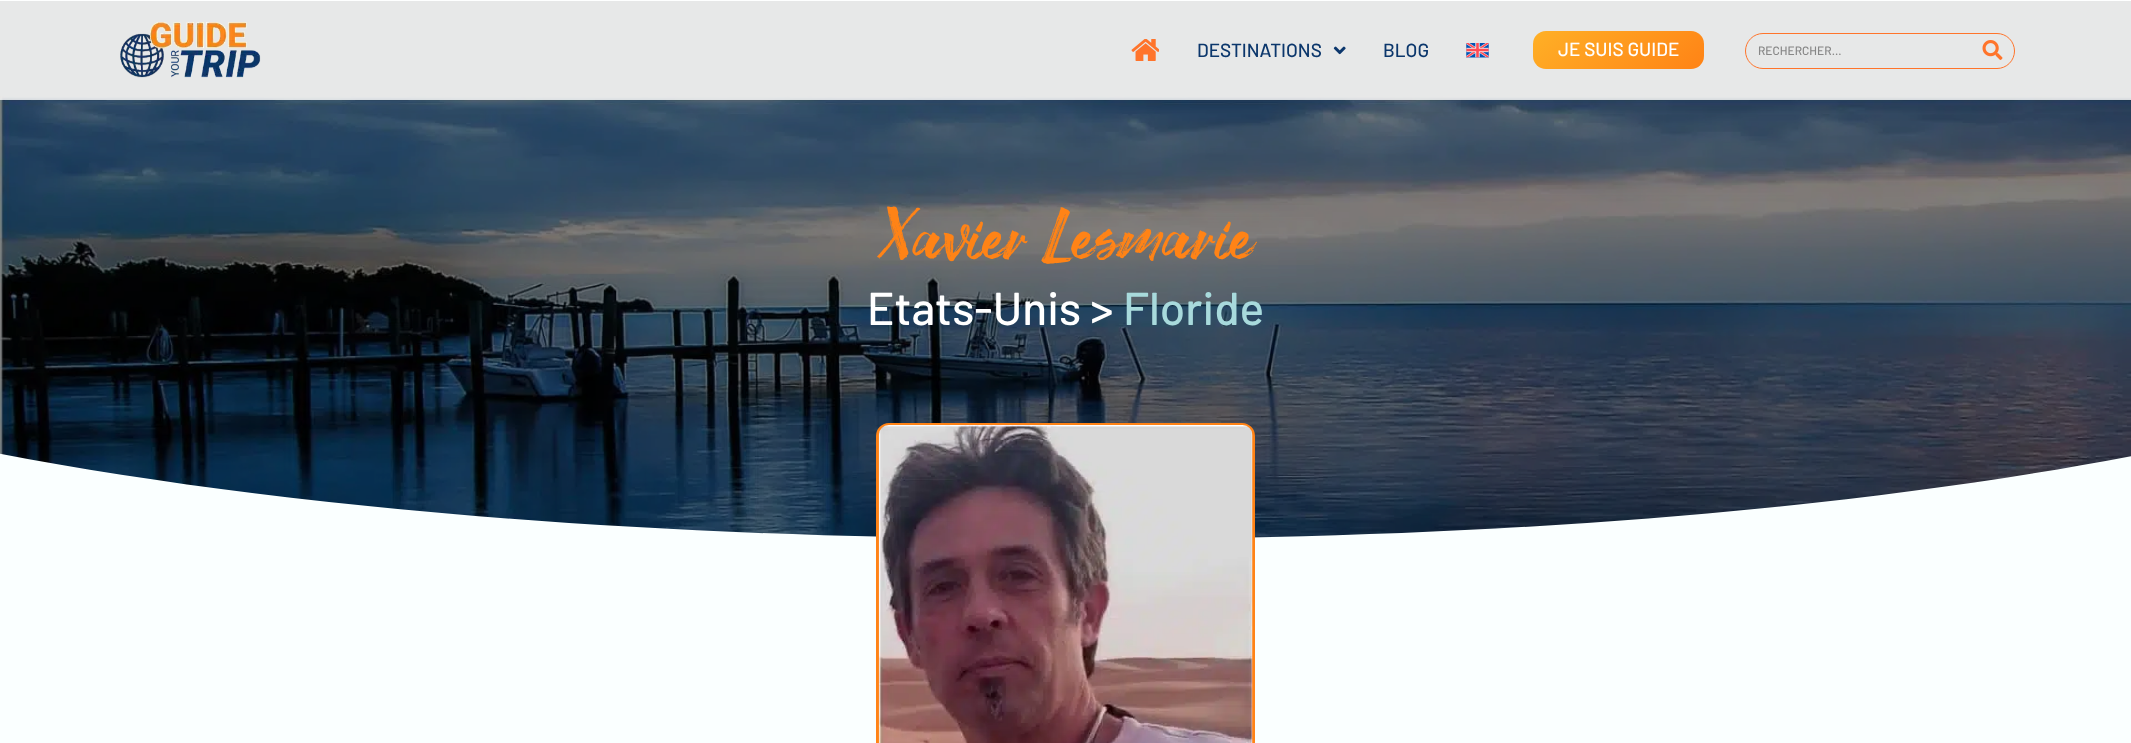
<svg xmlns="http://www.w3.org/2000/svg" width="2131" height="743">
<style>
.a{font:500 19px Barlow;fill:#0c376c}
.b{font:500 19px Barlow;fill:#fff}
.c{font:500 12px Barlow;fill:#878787}
.d{font:82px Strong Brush;fill:#ff8316}
.e{font:500 46px Barlow;fill:#fff}
.f{font:500 46px Barlow;fill:#a8dadc}
</style>
<defs>
<linearGradient id="g1" gradientUnits="userSpaceOnUse" x1="1572" y1="-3.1" x2="1664" y2="103"><stop offset="0" stop-color="#ffb026"/><stop offset="1" stop-color="#ff8316"/></linearGradient>
</defs>
<rect width="100%" height="100%" fill="#faffff"/>
<path fill="#7d8080" d="M0 1h2131v96H0z"/>
<image href="6.png" x="0" y="96" width="2131" height="442"/>
<path fill="#ffffffd1" d="M0 0h2131v100H0z"/>
<image href="1.png" x="120" y="22" width="141" height="56"/>
<image href="2.png" x="1131" y="39" width="28" height="22"/>
<image href="3.png" x="1333" y="46" width="13" height="9"/>
<image href="4.png" x="1466" y="43" width="23" height="15"/>
<rect fill="url(#g1)" x="1533" y="31" width="171" height="38" rx="13"/>
<rect fill="none" stroke="#ff742b" x="1745.5" y="33.5" width="269" height="35" rx="17.5"/>
<image href="5.png" x="1982" y="40" width="21" height="20"/>
<path fill="#faffff" d="M1066 539c-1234-2-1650-255-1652-320v330h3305v-327c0 61-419 320-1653 317z"/>
<rect fill="none" stroke="#ff8316" stroke-width="3" x="877.5" y="424.5" width="376" height="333" rx="11.5"/>
<image href="7.png" x="878" y="425" width="375" height="318"/>
<text class="a" x="1197" y="57">DESTINATIONS</text>
<text class="a" x="1383" y="57">BLOG</text>
<text class="b" x="1558" y="56">JE SUIS GUIDE</text>
<text class="c" x="1758" y="55">RECHERCHER…</text>
<text class="d" x="877" y="255">Xavier Lesmarie</text>
<text class="e" x="867" y="325">Etats-Unis &gt;</text>
<text class="f" x="1123" y="325">Floride</text>
</svg>
